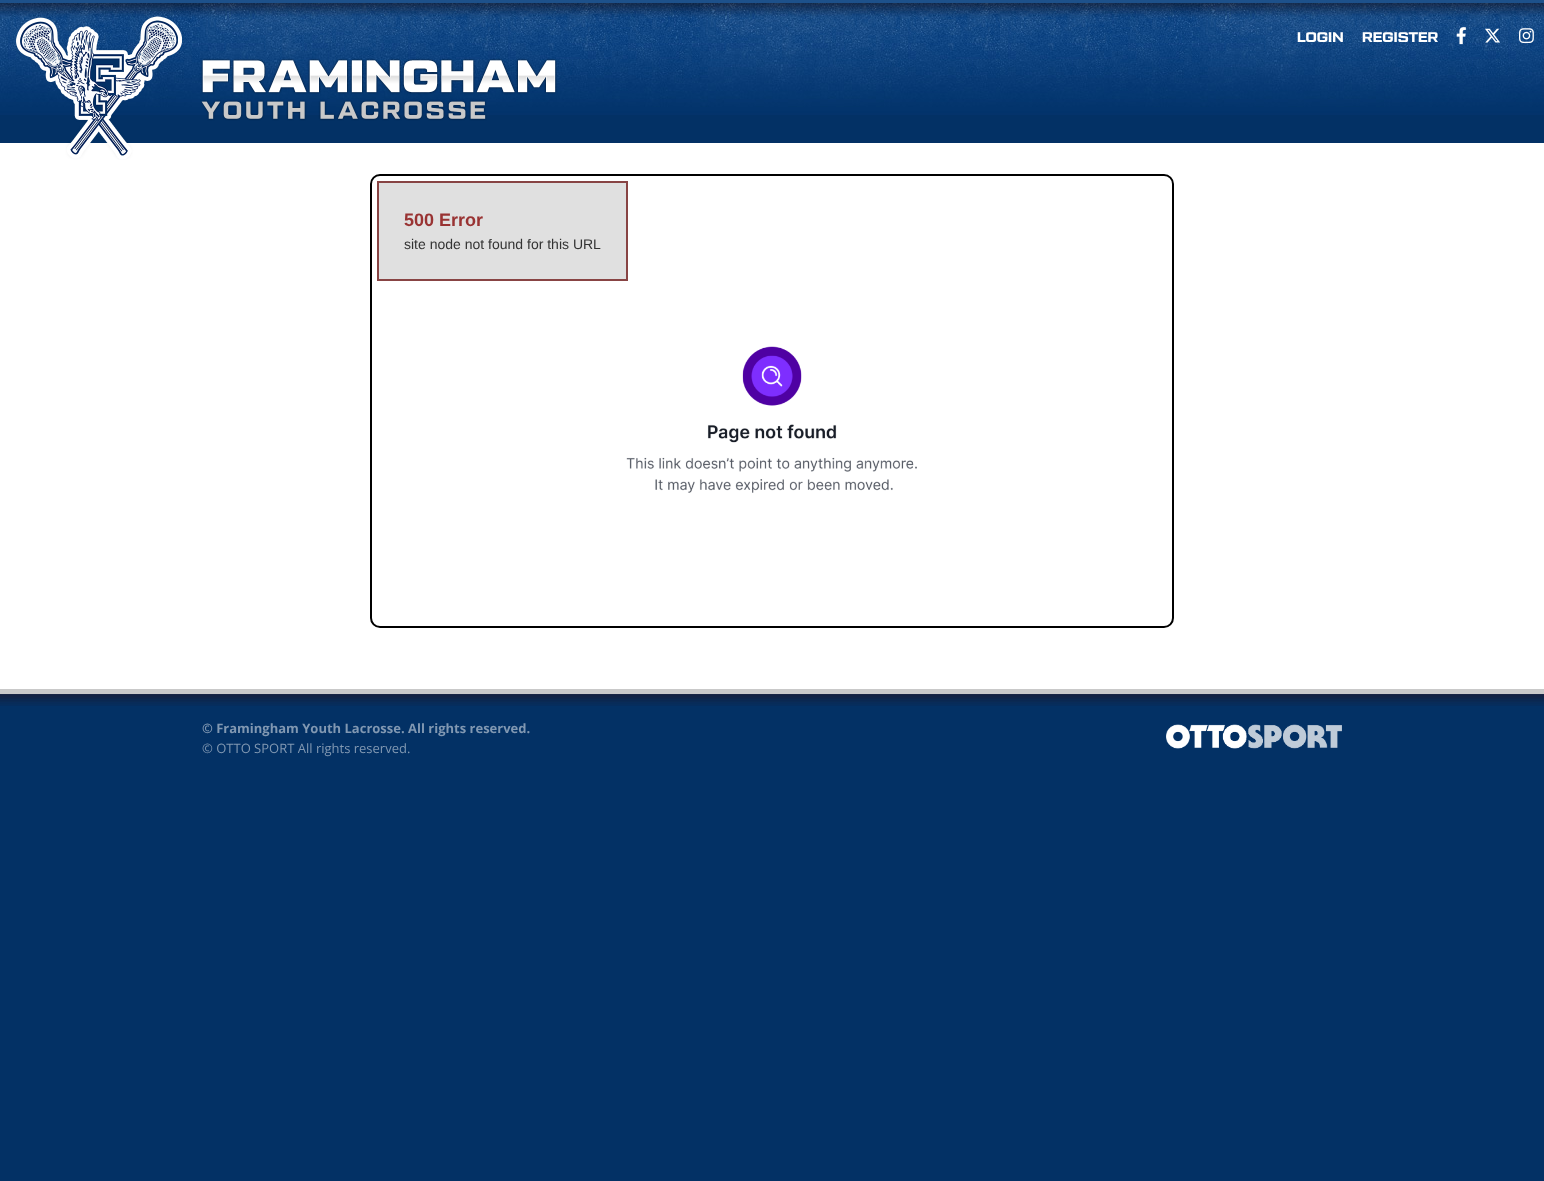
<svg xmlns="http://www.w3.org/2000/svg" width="1544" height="1181">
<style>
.a{font:14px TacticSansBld;fill:#fff}
.b{font:bold 18px Liberation Sans;fill:#933}
.c{font:14px Liberation Sans;fill:#333}
.d{font:bold 13px Open Sans;fill:#8198b2}
.e{font:13px Open Sans;fill:#8198b2}
</style>
<rect width="100%" height="100%" fill="#033165"/>
<path fill="#1d518b" d="M0 0h1544v3H0z"/>
<image href="1.png" x="0" y="3" width="1544" height="112"/>
<path fill="#fff" d="M0 143h1544v546H0z"/>
<image href="2.png" x="16" y="16" width="541" height="144"/>
<image href="3.png" x="1456" y="27" width="10" height="18"/>
<image href="4.png" x="1485" y="28" width="15" height="15"/>
<image href="5.png" x="1519" y="28" width="15" height="16"/>
<image href="6.png" x="626" y="346" width="291" height="147"/>
<rect fill="none" stroke="#000" stroke-width="2" x="371" y="175" width="802" height="452" rx="9"/>
<path fill="#e0e0e0" stroke="#844" stroke-width="2" d="M378 182h249v98H378z"/>
<image href="7.png" x="0" y="694" width="1544" height="12"/>
<path fill="#c9c9c9" d="M0 689h1544v5H0z"/>
<image href="8.png" x="1166" y="724" width="176" height="25"/>
<text class="a" x="1297" y="42">LOGIN</text>
<text class="a" x="1362" y="42">REGISTER</text>
<text class="b" x="404" y="226">500 Error</text>
<text class="c" x="404" y="249">site node not found for this URL</text>
<text class="d" x="202" y="733">© Framingham Youth Lacrosse. All rights reserved.</text>
<text class="e" x="202" y="753">© OTTO SPORT All rights reserved.</text>
</svg>
